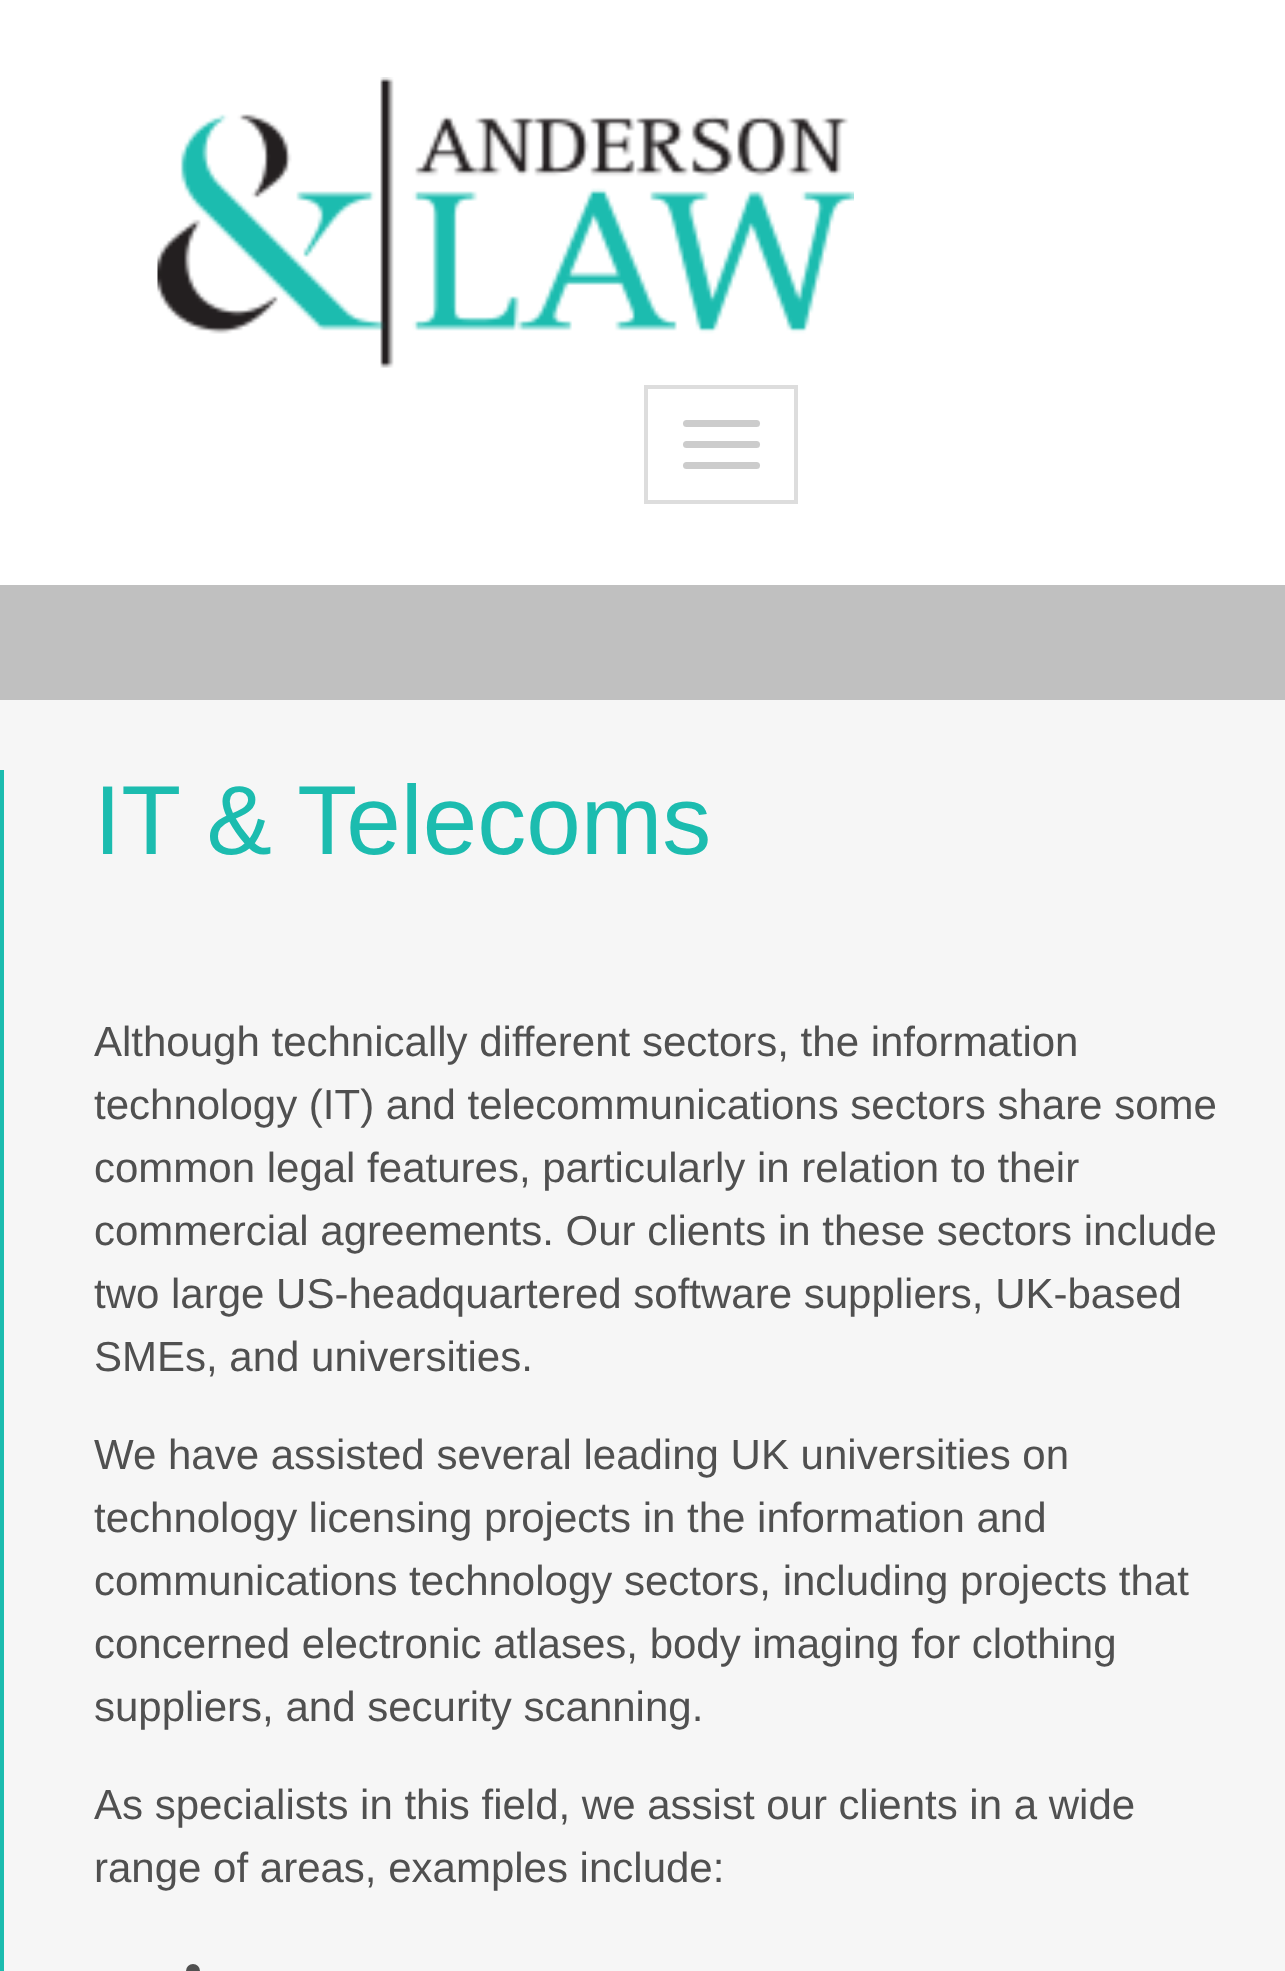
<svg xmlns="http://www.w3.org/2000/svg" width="1285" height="1971">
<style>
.a{font:98px Liberation Sans;fill:#1cbcaf}
.b{font:42px Liberation Sans;fill:#505050}
</style>
<rect width="100%" height="100%" fill="#c0c0c0"/>
<path fill="#fff" d="M0 0h1285v585H0z"/>
<image href="1.png" x="157" y="77" width="697" height="291"/>
<path fill="none" stroke="#ddd" stroke-width="4" d="M646 387h150v115H646z"/>
<rect fill="#ccc" x="683" y="420" width="77" height="7" rx="3.5"/>
<rect fill="#ccc" x="683" y="441" width="77" height="7" rx="3.5"/>
<rect fill="#ccc" x="683" y="462" width="77" height="7" rx="3.5"/>
<path fill="#f6f6f6" d="M0 700h1285v1271H0z"/>
<path fill="#1cbcaf" d="M0 770h4v1201H0z"/>
<circle fill="#505050" cx="193" cy="1971" r="7"/>
<text class="a" x="94" y="854">IT &amp; Telecoms</text>
<text class="b" x="94" y="1056">Although technically different sectors, the information</text>
<text class="b" x="94" y="1119">technology (IT) and telecommunications sectors share some</text>
<text class="b" x="94" y="1182">common legal features, particularly in relation to their</text>
<text class="b" x="94" y="1245">commercial agreements. Our clients in these sectors include</text>
<text class="b" x="94" y="1308">two large US-headquartered software suppliers, UK-based</text>
<text class="b" x="94" y="1371">SMEs, and universities.</text>
<text class="b" x="94" y="1469">We have assisted several leading UK universities on</text>
<text class="b" x="94" y="1532">technology licensing projects in the information and</text>
<text class="b" x="94" y="1595">communications technology sectors, including projects that</text>
<text class="b" x="94" y="1658">concerned electronic atlases, body imaging for clothing</text>
<text class="b" x="94" y="1721">suppliers, and security scanning.</text>
<text class="b" x="94" y="1819">As specialists in this field, we assist our clients in a wide</text>
<text class="b" x="94" y="1882">range of areas, examples include:</text>
</svg>
